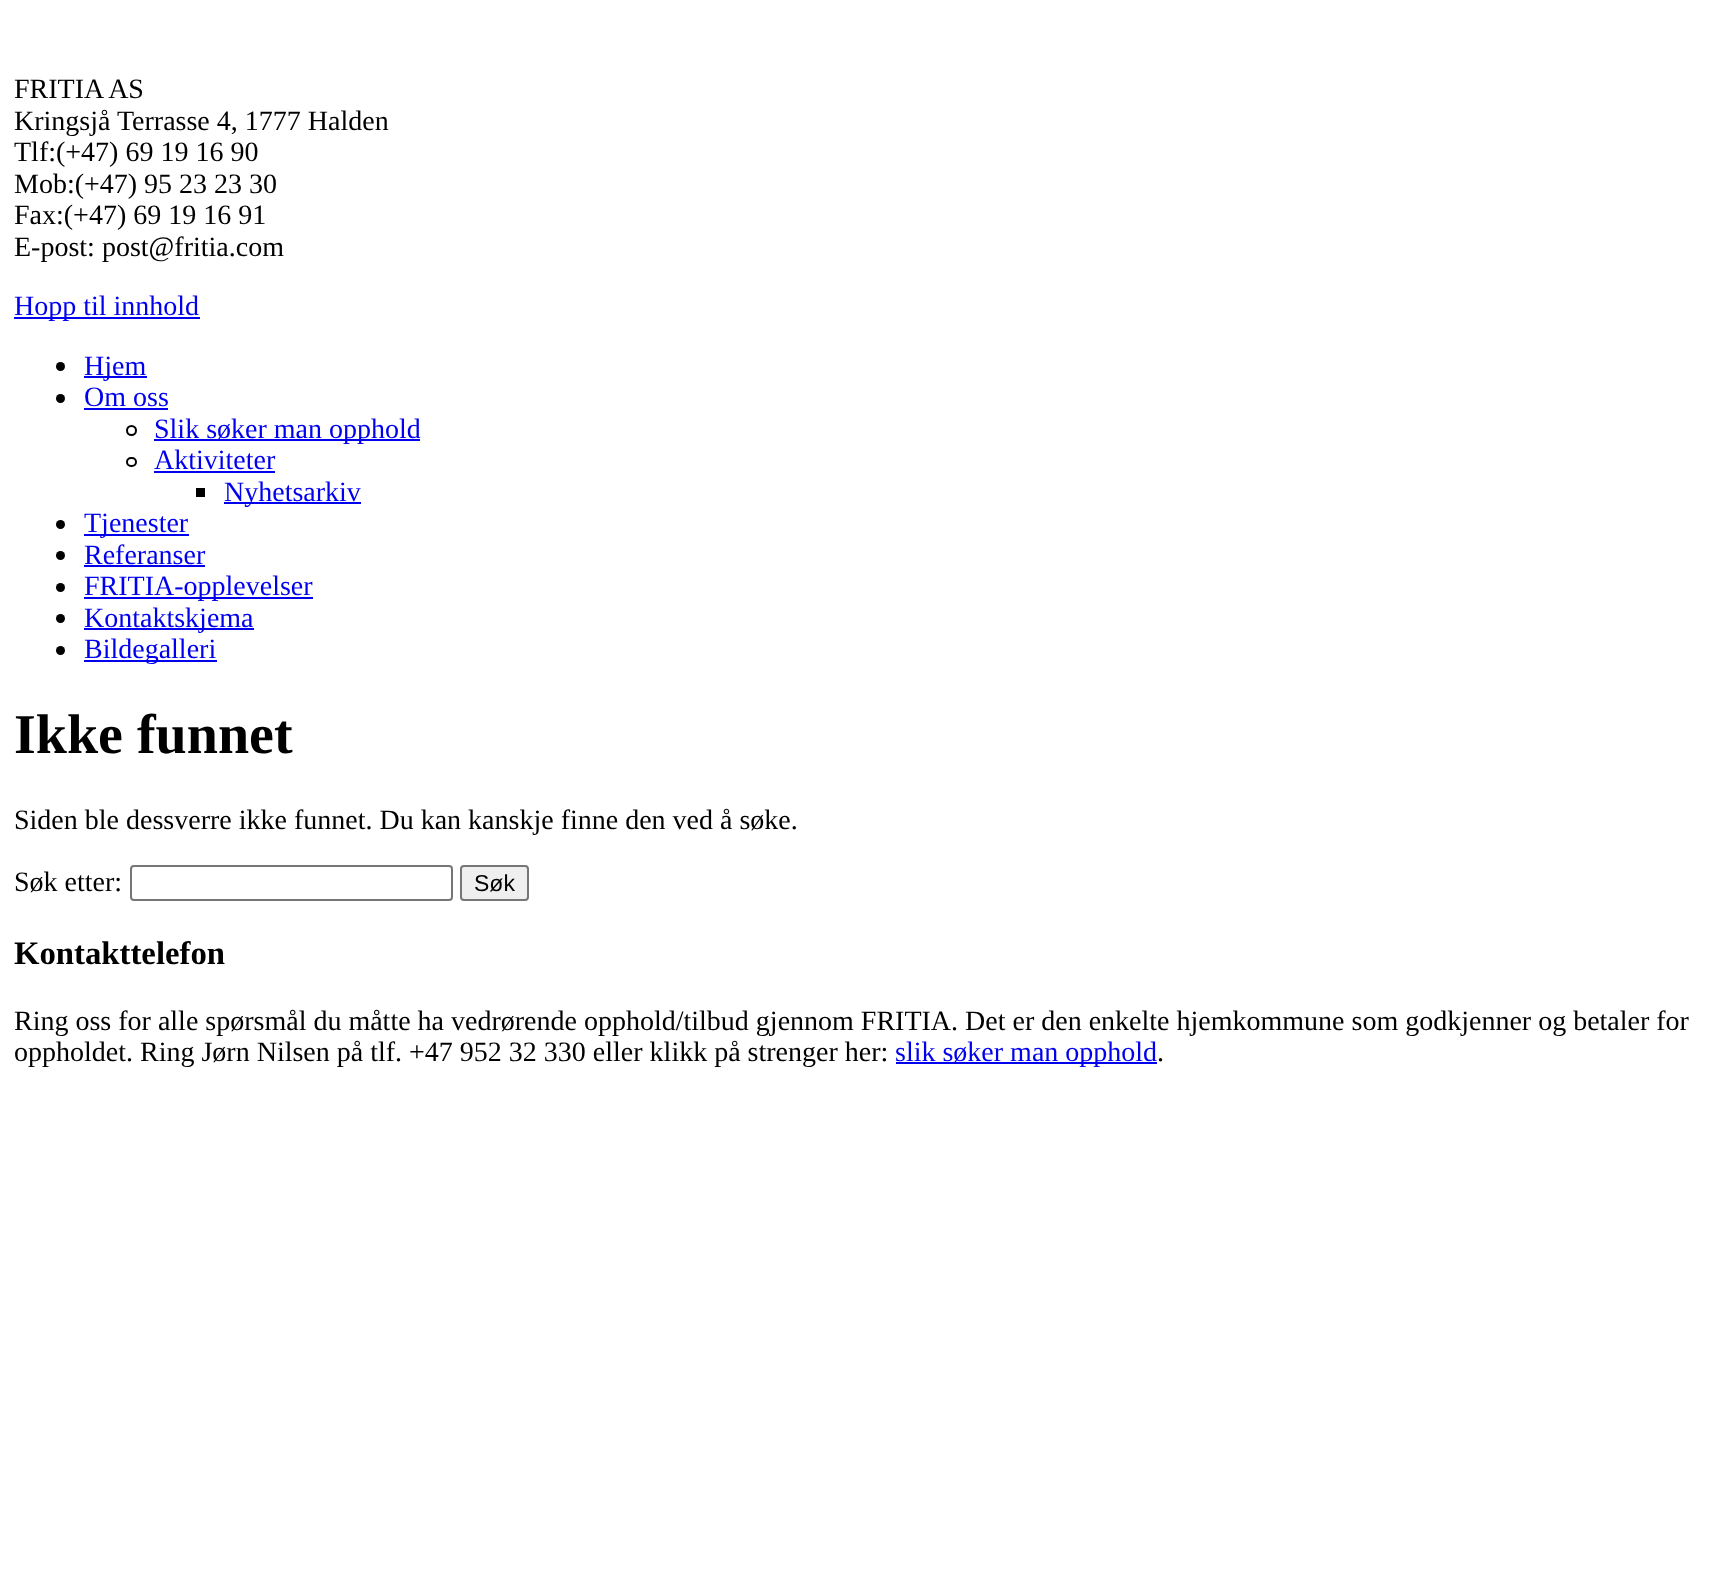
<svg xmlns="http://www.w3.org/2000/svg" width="1717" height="1569">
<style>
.a{font:28px Liberation Serif;fill:#000}
.b{font:28px Liberation Serif;fill:#00e}
.c{font:bold 56px Liberation Serif;fill:#000}
.d{font:23px Liberation Sans;fill:#000}
.e{font:bold 32.75px Liberation Serif;fill:#000}
</style>
<rect width="100%" height="100%" fill="#fff"/>
<path fill="#00e" d="M14 317h186v2H14z"/>
<circle fill="#000" cx="60.5" cy="366.5" r="4.5"/>
<path fill="#00e" d="M84 376h63v2H84z"/>
<circle fill="#000" cx="60.5" cy="398.5" r="4.5"/>
<path fill="#00e" d="M84 408h84v2H84z"/>
<circle fill="none" stroke="#000" stroke-width="2" cx="131.5" cy="430.5" r="4.5"/>
<path fill="#00e" d="M154 439h266v2H154z"/>
<rect fill="none" stroke="#000" stroke-width="2" x="127" y="458" width="9" height="8" rx="4"/>
<path fill="#00e" d="M154 471h121v2H154z"/>
<path fill="#000" d="M196 488h9v9H196z"/>
<path fill="#00e" d="M224 502h137v2H224z"/>
<circle fill="#000" cx="60.5" cy="524.5" r="4.5"/>
<path fill="#00e" d="M84 534h105v2H84z"/>
<circle fill="#000" cx="60.5" cy="555.5" r="4.5"/>
<path fill="#00e" d="M84 565h121v2H84z"/>
<circle fill="#000" cx="60.5" cy="587.5" r="4.5"/>
<path fill="#00e" d="M84 597h229v2H84z"/>
<circle fill="#000" cx="60.5" cy="618.5" r="4.5"/>
<path fill="#00e" d="M84 628h170v2H84z"/>
<circle fill="#000" cx="60.5" cy="650.5" r="4.5"/>
<path fill="#00e" d="M84 660h133v2H84z"/>
<rect fill="none" stroke="#767676" stroke-width="2" x="131" y="866" width="321" height="34" rx="3"/>
<rect fill="#efefef" stroke="#767676" stroke-width="2" x="461" y="866" width="67" height="34" rx="3"/>
<path fill="#00e" d="M896 1062h261v2H896z"/>
<text class="a" x="14" y="98">FRITIA AS</text>
<text class="a" x="14" y="130">Kringsjå Terrasse 4, 1777 Halden</text>
<text class="a" x="14" y="161">Tlf:(+47) 69 19 16 90</text>
<text class="a" x="14" y="193">Mob:(+47) 95 23 23 30</text>
<text class="a" x="14" y="224">Fax:(+47) 69 19 16 91</text>
<text class="a" x="14" y="256">E-post: post@fritia.com</text>
<text class="b" x="14" y="315">Hopp til innhold</text>
<text class="b" x="84" y="375">Hjem</text>
<text class="b" x="84" y="406">Om oss</text>
<text class="b" x="154" y="438">Slik søker man opphold</text>
<text class="b" x="154" y="469">Aktiviteter</text>
<text class="b" x="224" y="501">Nyhetsarkiv</text>
<text class="b" x="84" y="532">Tjenester</text>
<text class="b" x="84" y="564">Referanser</text>
<text class="b" x="84" y="595">FRITIA-opplevelser</text>
<text class="b" x="84" y="627">Kontaktskjema</text>
<text class="b" x="84" y="658">Bildegalleri</text>
<text class="c" x="14" y="753">Ikke funnet</text>
<text class="a" x="14" y="829">Siden ble dessverre ikke funnet. Du kan kanskje finne den ved å søke.</text>
<text class="a" x="14" y="891">Søk etter:</text>
<text class="d" x="474" y="891">Søk</text>
<text class="e" x="14" y="964">Kontakttelefon</text>
<text class="a" x="14" y="1030">Ring oss for alle spørsmål du måtte ha vedrørende opphold/tilbud gjennom FRITIA. Det er den enkelte hjemkommune som godkjenner og betaler for</text>
<text class="a" x="14" y="1061">oppholdet. Ring Jørn Nilsen på tlf. +47 952 32 330 eller klikk på strenger her:</text>
<text class="b" x="895" y="1061">slik søker man opphold</text>
<text class="a" x="1157" y="1061">.</text>
</svg>
